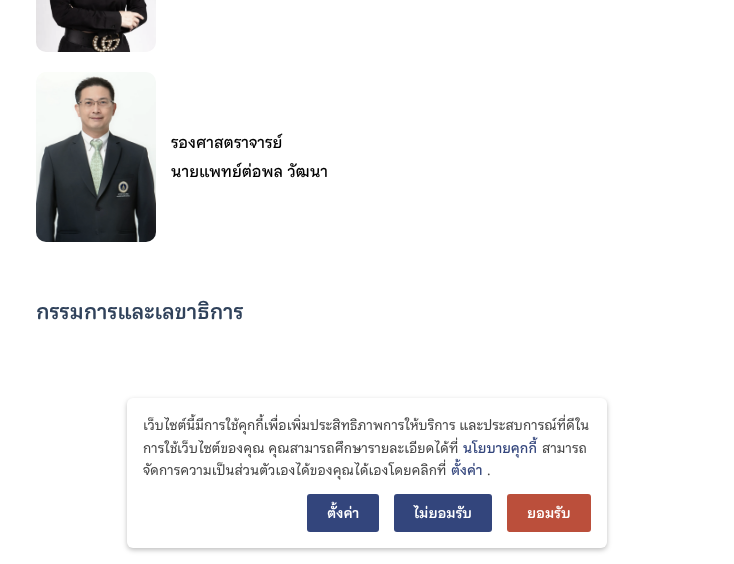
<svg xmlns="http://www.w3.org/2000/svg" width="734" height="564">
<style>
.a{font:500 16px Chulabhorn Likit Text;fill:#000}
.b{font:bold 21px Chulabhorn Likit Text;fill:#30425b}
.c{font:14px Chulabhorn Likit Text;fill:#444}
.d{font:500 14px Chulabhorn Likit Text;fill:#33457c}
.e{font:bold 14px Chulabhorn Likit Text;fill:#fff}
</style>
<rect width="100%" height="100%" fill="#fff"/>
<image href="1.png" x="36" y="0" width="120" height="52"/>
<image href="2.png" x="36" y="72" width="120" height="170"/>
<rect fill="#00000040" filter="blur(2.5px)" x="127" y="400" width="480" height="150" rx="6"/>
<rect fill="#fff" x="127" y="398" width="480" height="150" rx="6"/>
<rect fill="#33457c" x="307" y="494" width="72" height="38" rx="3"/>
<rect fill="#33457c" x="394" y="494" width="98" height="38" rx="3"/>
<rect fill="#bb4f3b" x="507" y="494" width="84" height="38" rx="3"/>
<text class="a" x="171" y="148">รองศาสตราจารย์</text>
<text class="a" x="171" y="177">นายแพทย์ต่อพล วัฒนา</text>
<text class="b" x="36" y="319">กรรมการและเลขาธิการ</text>
<text class="c" x="143" y="430">เว็บไซต์นี้มีการใช้คุกกี้เพื่อเพิ่มประสิทธิภาพการให้บริการ และประสบการณ์ที่ดีใน</text>
<text class="c" x="143" y="453">การใช้เว็บไซต์ของคุณ คุณสามารถศึกษารายละเอียดได้ที่</text>
<text class="d" x="463" y="453">นโยบายคุกกี้</text>
<text class="c" x="542" y="453">สามารถ</text>
<text class="c" x="143" y="475">จัดการความเป็นส่วนตัวเองได้ของคุณได้เองโดยคลิกที่</text>
<text class="d" x="451" y="475">ตั้งค่า</text>
<text class="c" x="487" y="475">.</text>
<text class="e" x="327" y="518">ตั้งค่า</text>
<text class="e" x="414" y="518">ไม่ยอมรับ</text>
<text class="e" x="527" y="518">ยอมรับ</text>
</svg>
